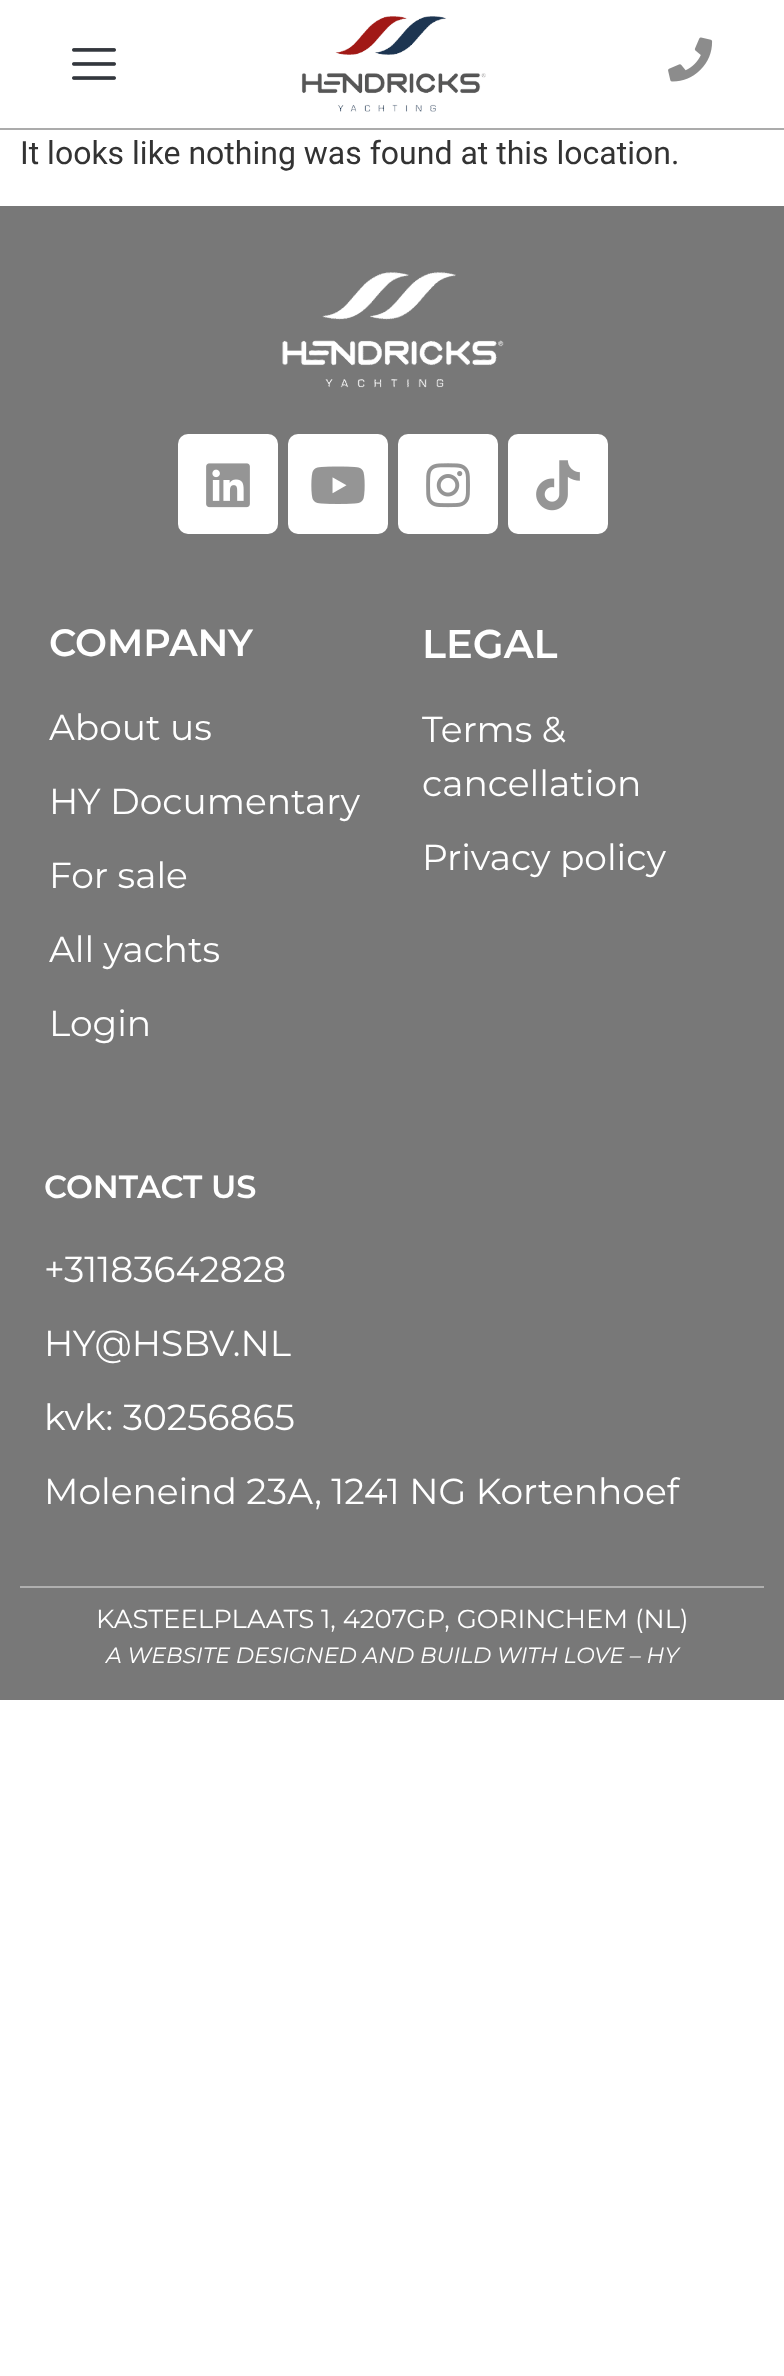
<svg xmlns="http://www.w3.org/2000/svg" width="784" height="2376">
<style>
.a{font:32px Roboto;fill:#333}
.b{font:600 38px Montserrat;fill:#fff}
.c{font:36px Montserrat;fill:#fff}
.d{font:600 40px Montserrat;fill:#fff}
.e{font:600 32px Montserrat;fill:#fff}
.f{font:26px Montserrat;fill:#fff}
.g{font:italic 22px Montserrat;fill:#fff}
</style>
<rect width="100%" height="100%" fill="#fff"/>
<path fill="#ababab" d="M0 128h784v2H0z"/>
<image href="1.png" x="72" y="48" width="44" height="32"/>
<image href="2.png" x="301" y="16" width="185" height="96"/>
<image href="3.png" x="668" y="37" width="45" height="45"/>
<path fill="#787878" d="M0 206h784v1356H0z"/>
<image href="4.png" x="282" y="272" width="222" height="116"/>
<rect fill="#fff" x="178" y="434" width="100" height="100" rx="10"/>
<image href="5.png" x="206" y="463" width="44" height="45"/>
<rect fill="#fff" x="288" y="434" width="100" height="100" rx="10"/>
<image href="6.png" x="311" y="466" width="54" height="38"/>
<rect fill="#fff" x="398" y="434" width="100" height="100" rx="10"/>
<image href="7.png" x="426" y="463" width="44" height="45"/>
<rect fill="#fff" x="508" y="434" width="100" height="100" rx="10"/>
<image href="8.png" x="536" y="460" width="44" height="51"/>
<path fill="#787878" d="M0 1562h784v138H0z"/>
<path fill="#afafaf" d="M20 1586h744v2H20z"/>
<text class="a" x="20" y="164">It looks like nothing was found at this location.</text>
<text class="b" x="49" y="656">COMPANY</text>
<text class="c" x="49" y="740">About us</text>
<text class="c" x="49" y="814">HY Documentary</text>
<text class="c" x="49" y="888">For sale</text>
<text class="c" x="49" y="962">All yachts</text>
<text class="c" x="49" y="1036">Login</text>
<text class="d" x="422" y="658">LEGAL</text>
<text class="c" x="422" y="742">Terms &amp;</text>
<text class="c" x="422" y="796">cancellation</text>
<text class="c" x="422" y="870">Privacy policy</text>
<text class="e" x="44" y="1198">CONTACT US</text>
<text class="c" x="44" y="1282">+31183642828</text>
<text class="c" x="44" y="1356">HY@HSBV.NL</text>
<text class="c" x="44" y="1430">kvk: 30256865</text>
<text class="c" x="44" y="1504">Moleneind 23A, 1241 NG Kortenhoef</text>
<text class="f" x="96" y="1628">KASTEELPLAATS 1, 4207GP, GORINCHEM (NL)</text>
<text class="g" x="106" y="1663">A WEBSITE DESIGNED AND BUILD WITH LOVE – HY</text>
</svg>
